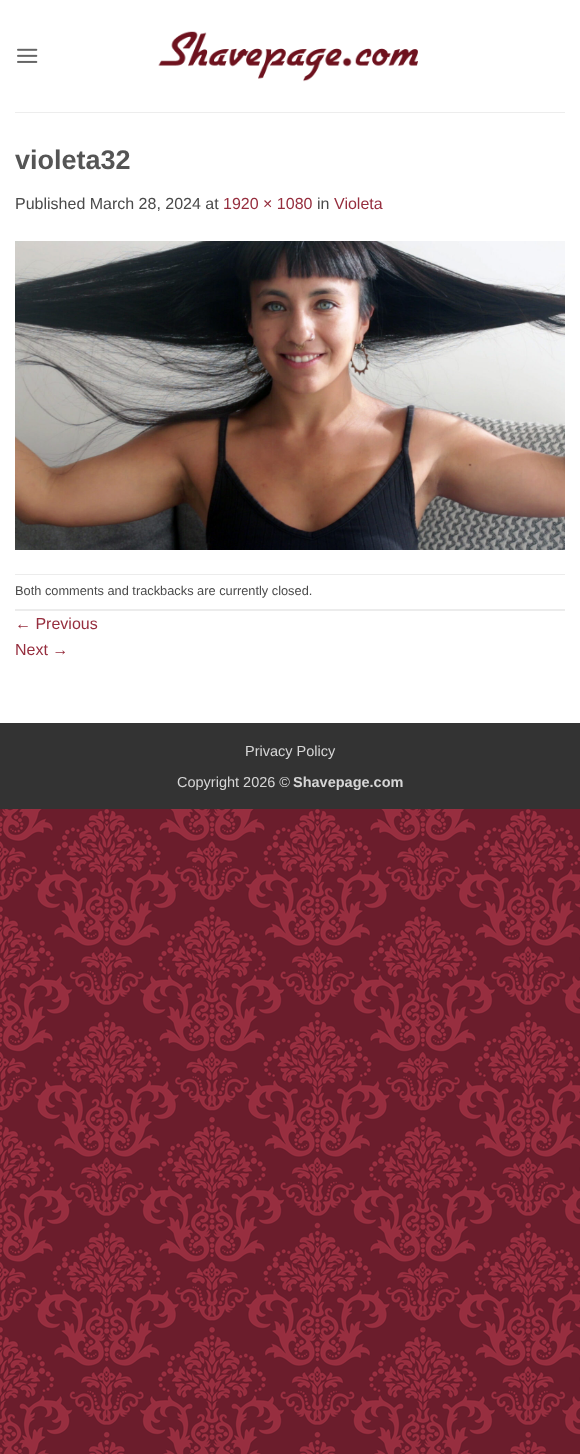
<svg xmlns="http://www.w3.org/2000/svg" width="580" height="1454">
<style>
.a{font:bold 27px Liberation Sans;fill:#555}
.b{font:16px Liberation Sans;fill:#4a4a4a}
.c{font:16px Liberation Sans;fill:#962e3e}
.d{font:12.8px Liberation Sans;fill:#4a4a4a}
.e{font:14.5px Liberation Sans;fill:#d6d6d6}
.f{font:bold 14.5px Liberation Sans;fill:#d6d6d6}
</style>
<rect width="100%" height="100%" fill="#fff"/>
<image href="1.png" x="0" y="809" width="580" height="645"/>
<image href="2.png" x="17" y="48" width="21" height="15"/>
<image href="3.png" x="158" y="31" width="260" height="51"/>
<path fill="#ededed" d="M15 112h550v1H15z"/>
<image href="4.png" x="15" y="241" width="550" height="309"/>
<path fill="#ececec" d="M15 574h550v1H15z"/>
<path fill="#ececec" d="M15 609h550v2H15z"/>
<path fill="#333" d="M0 723h580v86H0z"/>
<text class="a" x="15" y="169">violeta32</text>
<text class="b" x="15" y="209">Published March 28, 2024 at</text>
<text class="c" x="223" y="209">1920 × 1080</text>
<text class="b" x="317" y="209">in</text>
<text class="c" x="334" y="209">Violeta</text>
<text class="d" x="15" y="595">Both comments and trackbacks are currently closed.</text>
<text class="c" x="15" y="629">← Previous</text>
<text class="c" x="15" y="655">Next →</text>
<text class="e" x="245" y="756">Privacy Policy</text>
<text class="e" x="177" y="787">Copyright 2026 ©</text>
<text class="f" x="293" y="787">Shavepage.com</text>
</svg>
